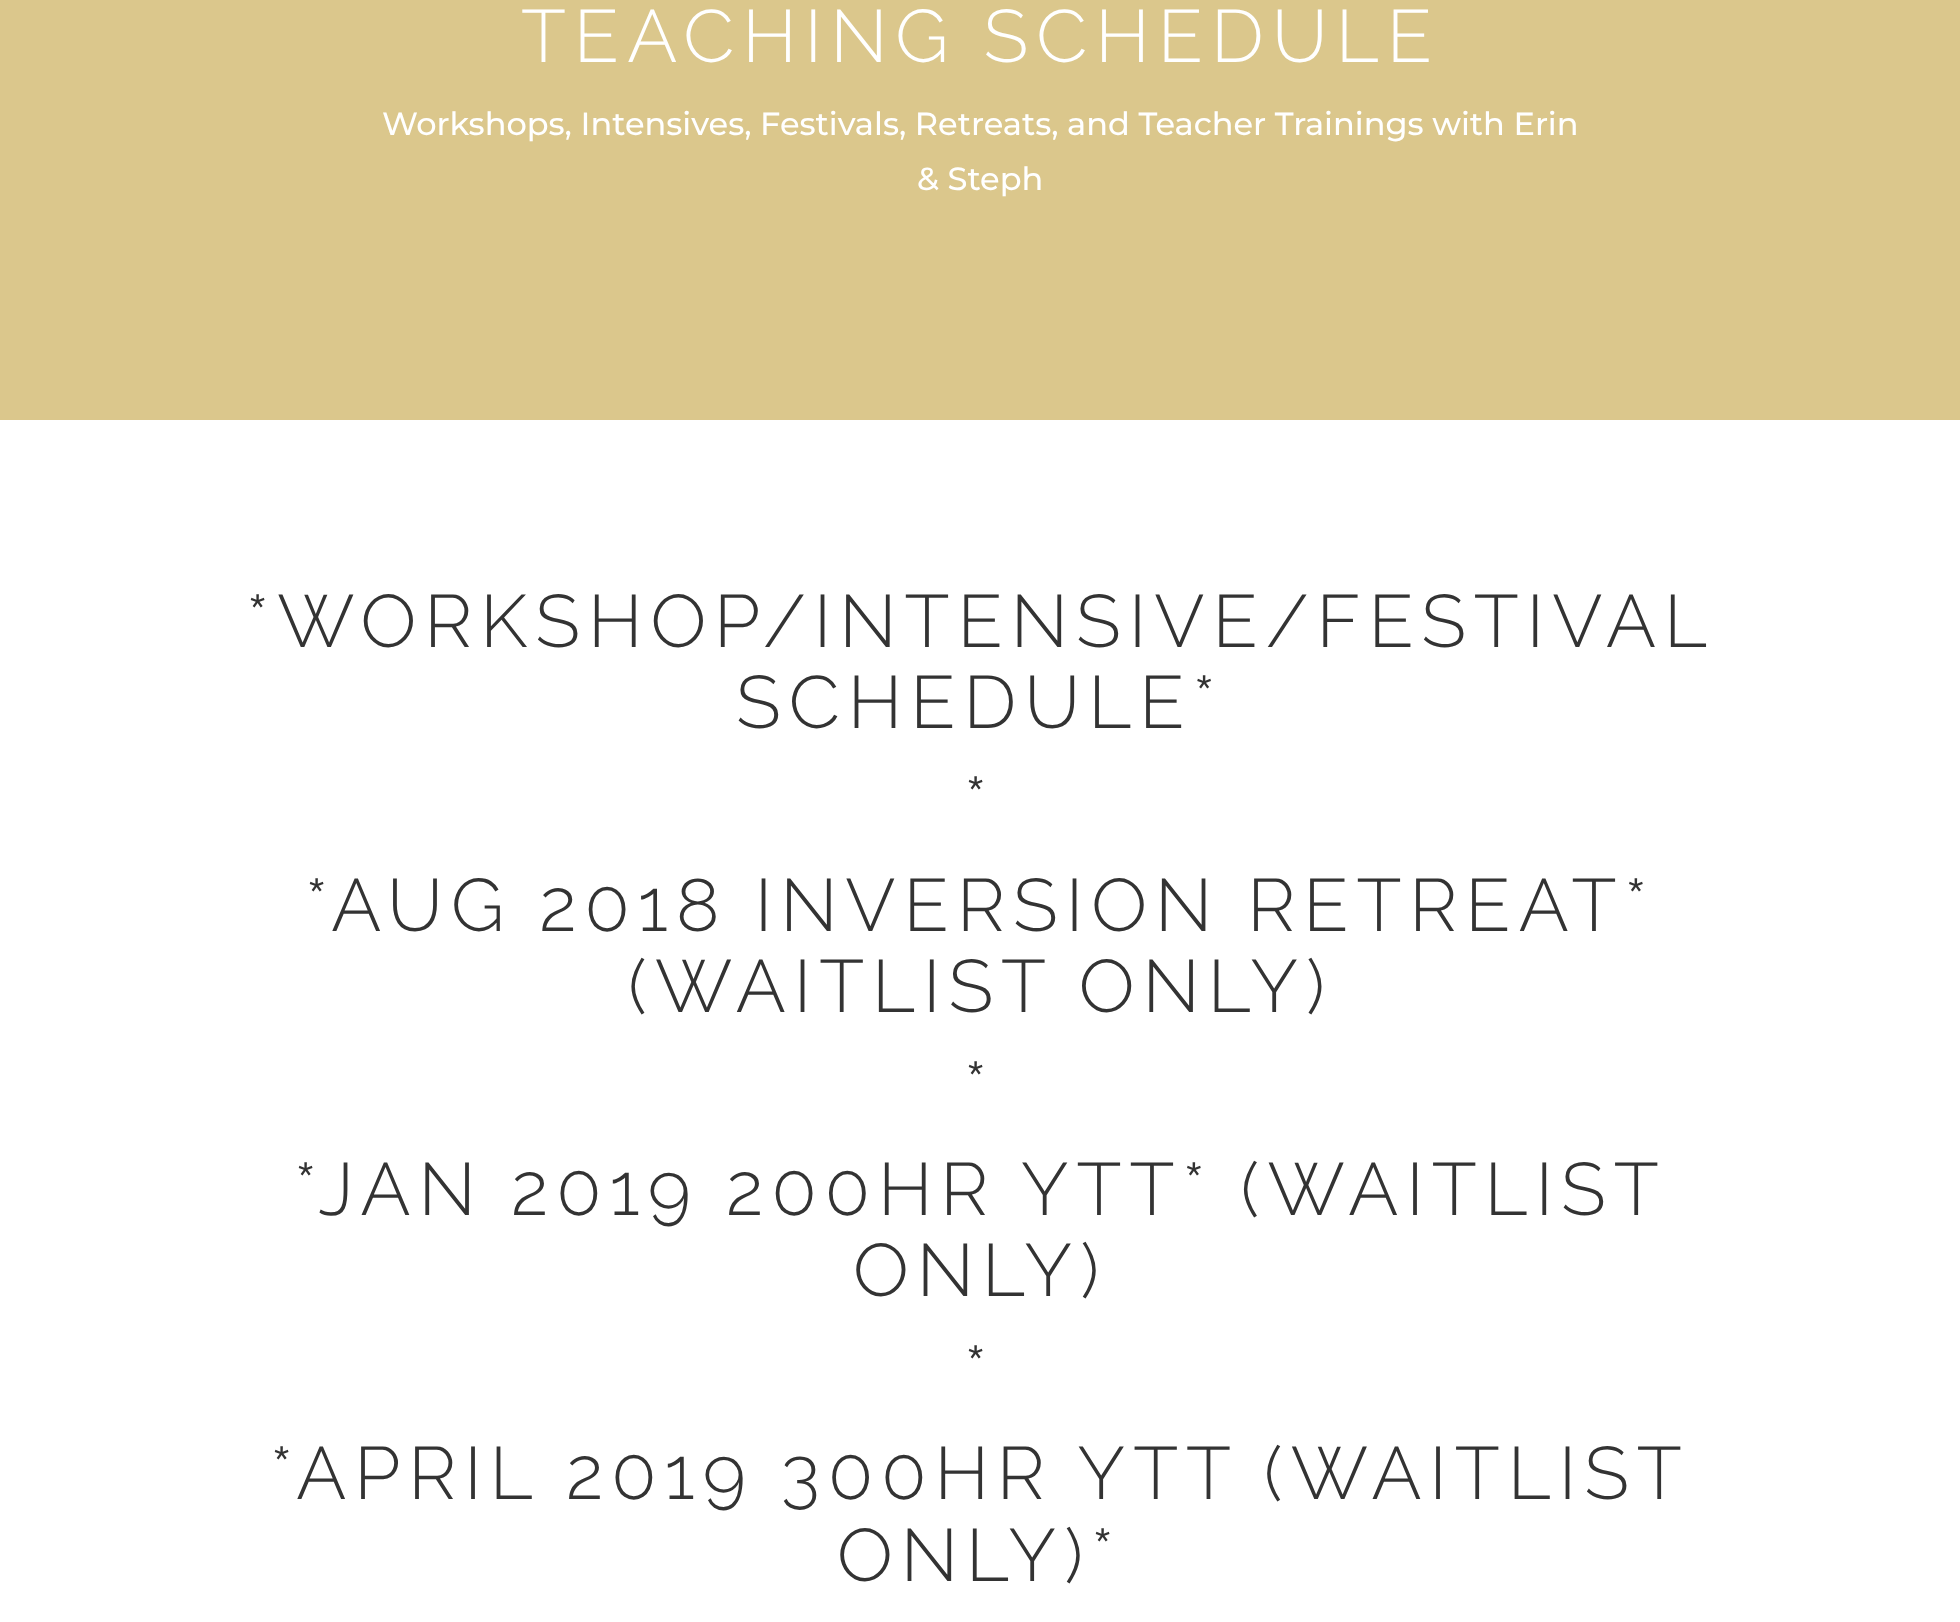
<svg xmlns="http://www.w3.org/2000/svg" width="1960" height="1622">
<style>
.a{font:300 74px Raleway;letter-spacing:8px;fill:#fff}
.b{font:500 32px Montserrat;fill:#fff}
.c{font:300 74px Raleway;letter-spacing:8px;fill:#333}
</style>
<rect width="100%" height="100%" fill="#dbc78c"/>
<path fill="#fff" d="M0 420h1960v1202H0z"/>
<text class="a" x="521" y="62">TEACHING SCHEDULE</text>
<text class="b" x="382" y="135">Workshops, Intensives, Festivals, Retreats, and Teacher Trainings with Erin</text>
<text class="b" x="917" y="190">&amp; Steph</text>
<text class="c" x="246" y="647">*WORKSHOP/INTENSIVE/FESTIVAL</text>
<text class="c" x="736" y="728">SCHEDULE*</text>
<text class="c" x="964" y="829">*</text>
<text class="c" x="305" y="931">*AUG 2018 INVERSION RETREAT*</text>
<text class="c" x="628" y="1012">(WAITLIST ONLY)</text>
<text class="c" x="964" y="1114">*</text>
<text class="c" x="294" y="1215">*JAN 2019 200HR YTT* (WAITLIST</text>
<text class="c" x="853" y="1296">ONLY)</text>
<text class="c" x="964" y="1398">*</text>
<text class="c" x="270" y="1499">*APRIL 2019 300HR YTT (WAITLIST</text>
<text class="c" x="837" y="1581">ONLY)*</text>
</svg>
